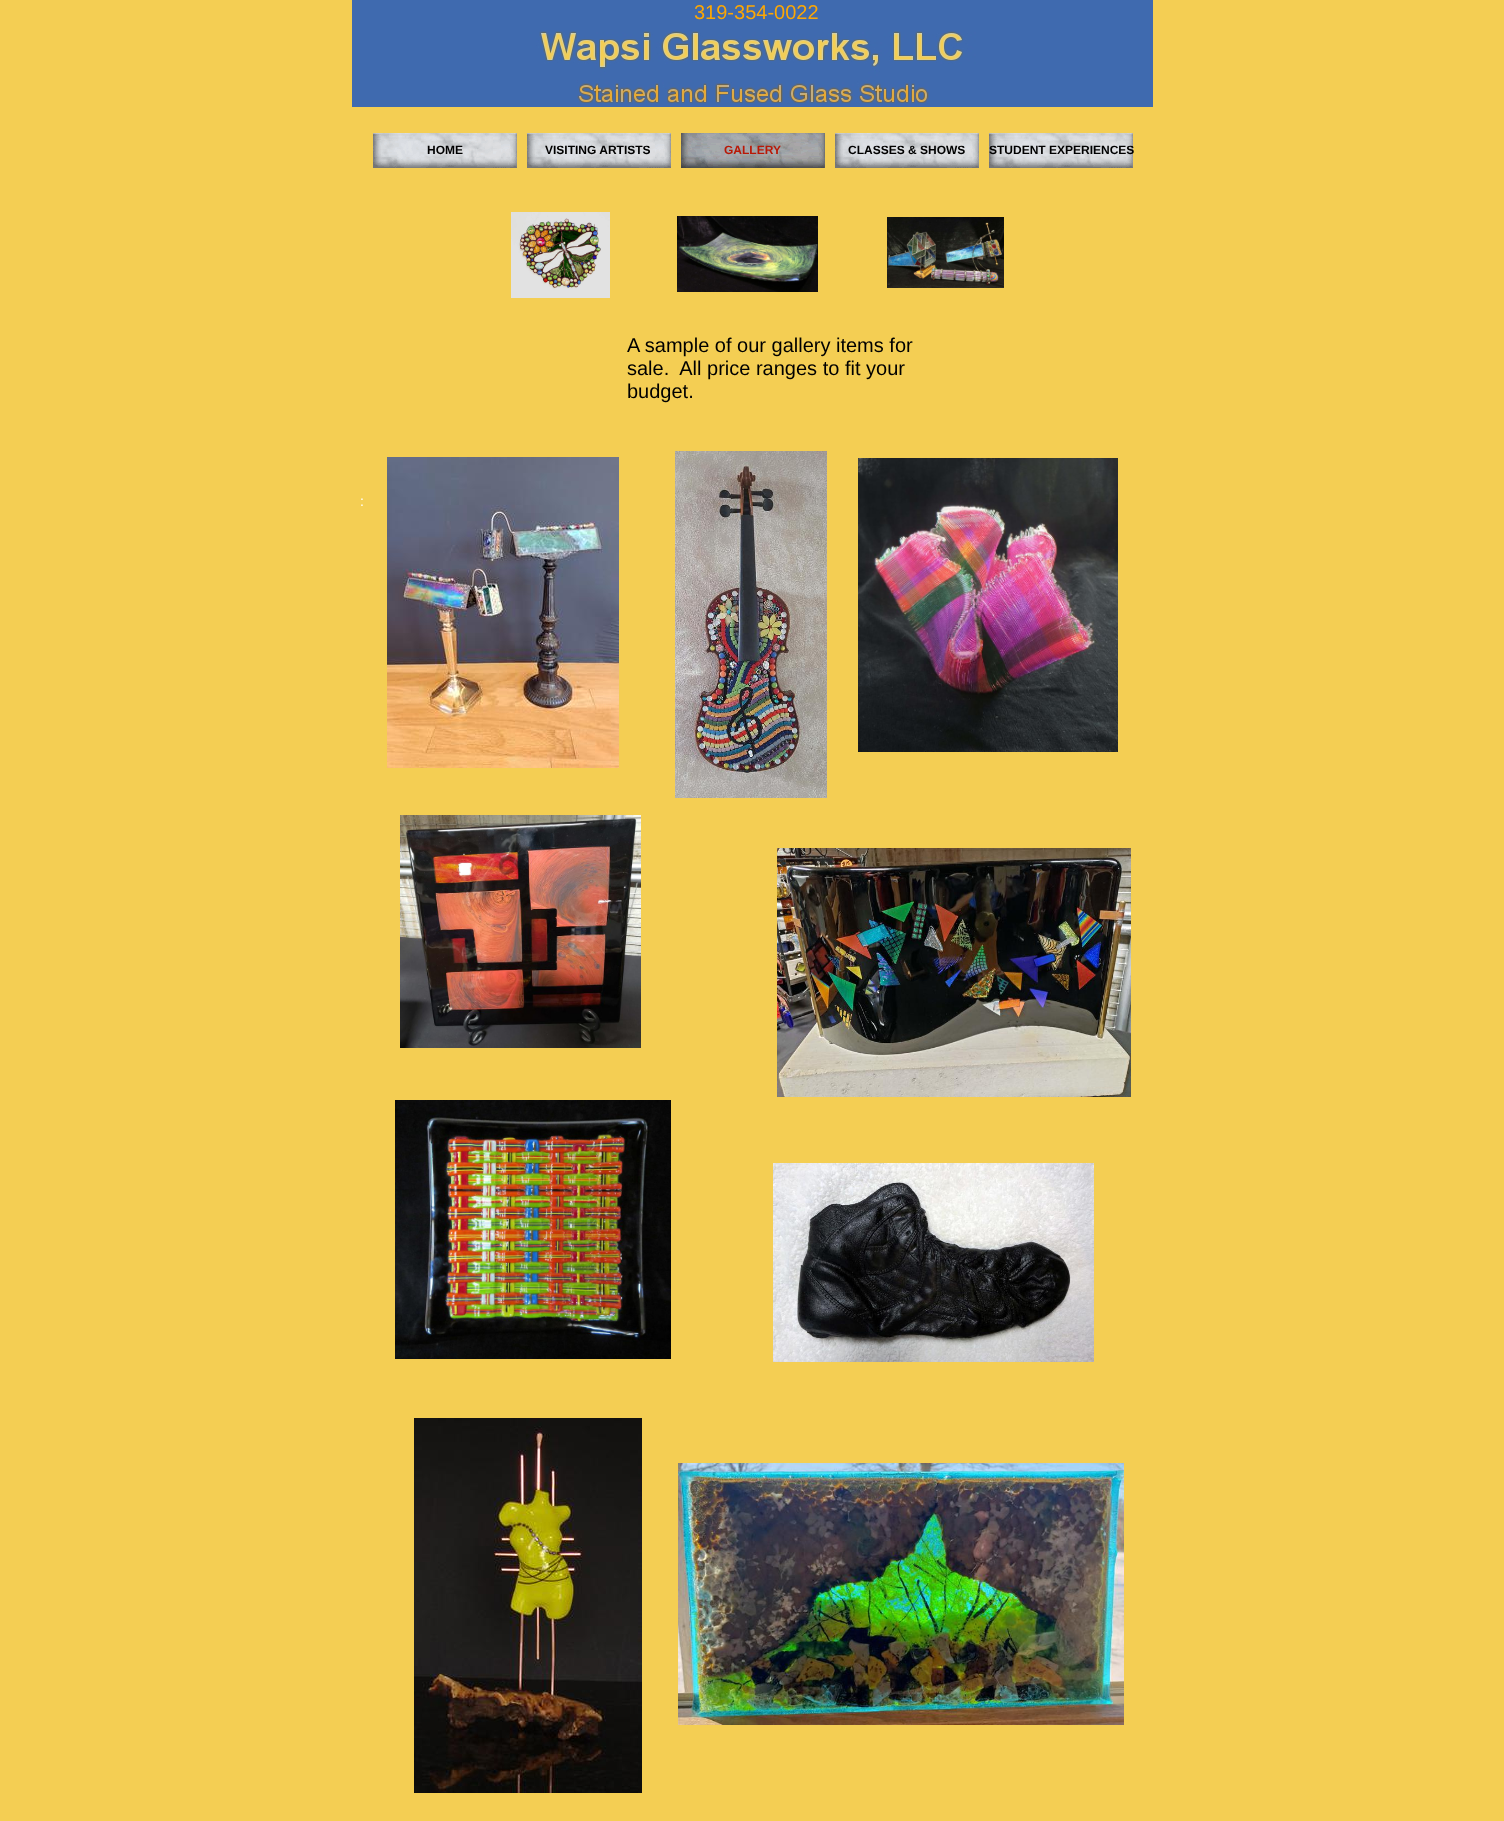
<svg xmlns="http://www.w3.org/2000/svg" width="1504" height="1821">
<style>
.a{font:20px Liberation Sans;fill:#fca705}
.b{font:bold 12px Liberation Sans;fill:#000}
.c{font:bold 12px Liberation Sans;fill:#b91806}
.d{font:20px Liberation Sans;fill:#000}
.e{font:14px Liberation Sans;fill:#fff}
</style>
<rect width="100%" height="100%" fill="#f4ce53"/>
<image href="1.png" x="352" y="0" width="801" height="107"/>
<image href="2.png" x="373" y="133" width="144" height="35"/>
<image href="2.png" x="527" y="133" width="144" height="35"/>
<image href="3.png" x="681" y="133" width="144" height="35"/>
<image href="2.png" x="835" y="133" width="144" height="35"/>
<image href="2.png" x="989" y="133" width="144" height="35"/>
<image href="4.png" x="511" y="212" width="99" height="86"/>
<image href="5.png" x="677" y="216" width="141" height="76"/>
<image href="6.png" x="887" y="217" width="117" height="71"/>
<image href="7.png" x="387" y="457" width="232" height="311"/>
<image href="8.png" x="675" y="451" width="152" height="347"/>
<image href="9.png" x="858" y="458" width="260" height="294"/>
<image href="10.png" x="400" y="815" width="241" height="233"/>
<image href="11.png" x="777" y="848" width="354" height="249"/>
<image href="12.png" x="395" y="1100" width="276" height="259"/>
<image href="13.png" x="773" y="1163" width="321" height="199"/>
<image href="14.png" x="414" y="1418" width="228" height="375"/>
<image href="15.png" x="678" y="1463" width="446" height="262"/>
<text class="a" x="694" y="19">319-354-0022</text>
<text class="b" x="427" y="154">HOME</text>
<text class="b" x="545" y="154">VISITING ARTISTS</text>
<text class="c" x="724" y="154">GALLERY</text>
<text class="b" x="848" y="154">CLASSES &amp; SHOWS</text>
<text class="b" x="989" y="154">STUDENT EXPERIENCES</text>
<text class="d" x="627" y="352">A sample of our gallery items for</text>
<text class="d" xml:space="preserve" x="627" y="375">sale.  All price ranges to fit your</text>
<text class="d" x="627" y="398">budget.</text>
<text class="e" x="360" y="506">:</text>
</svg>
